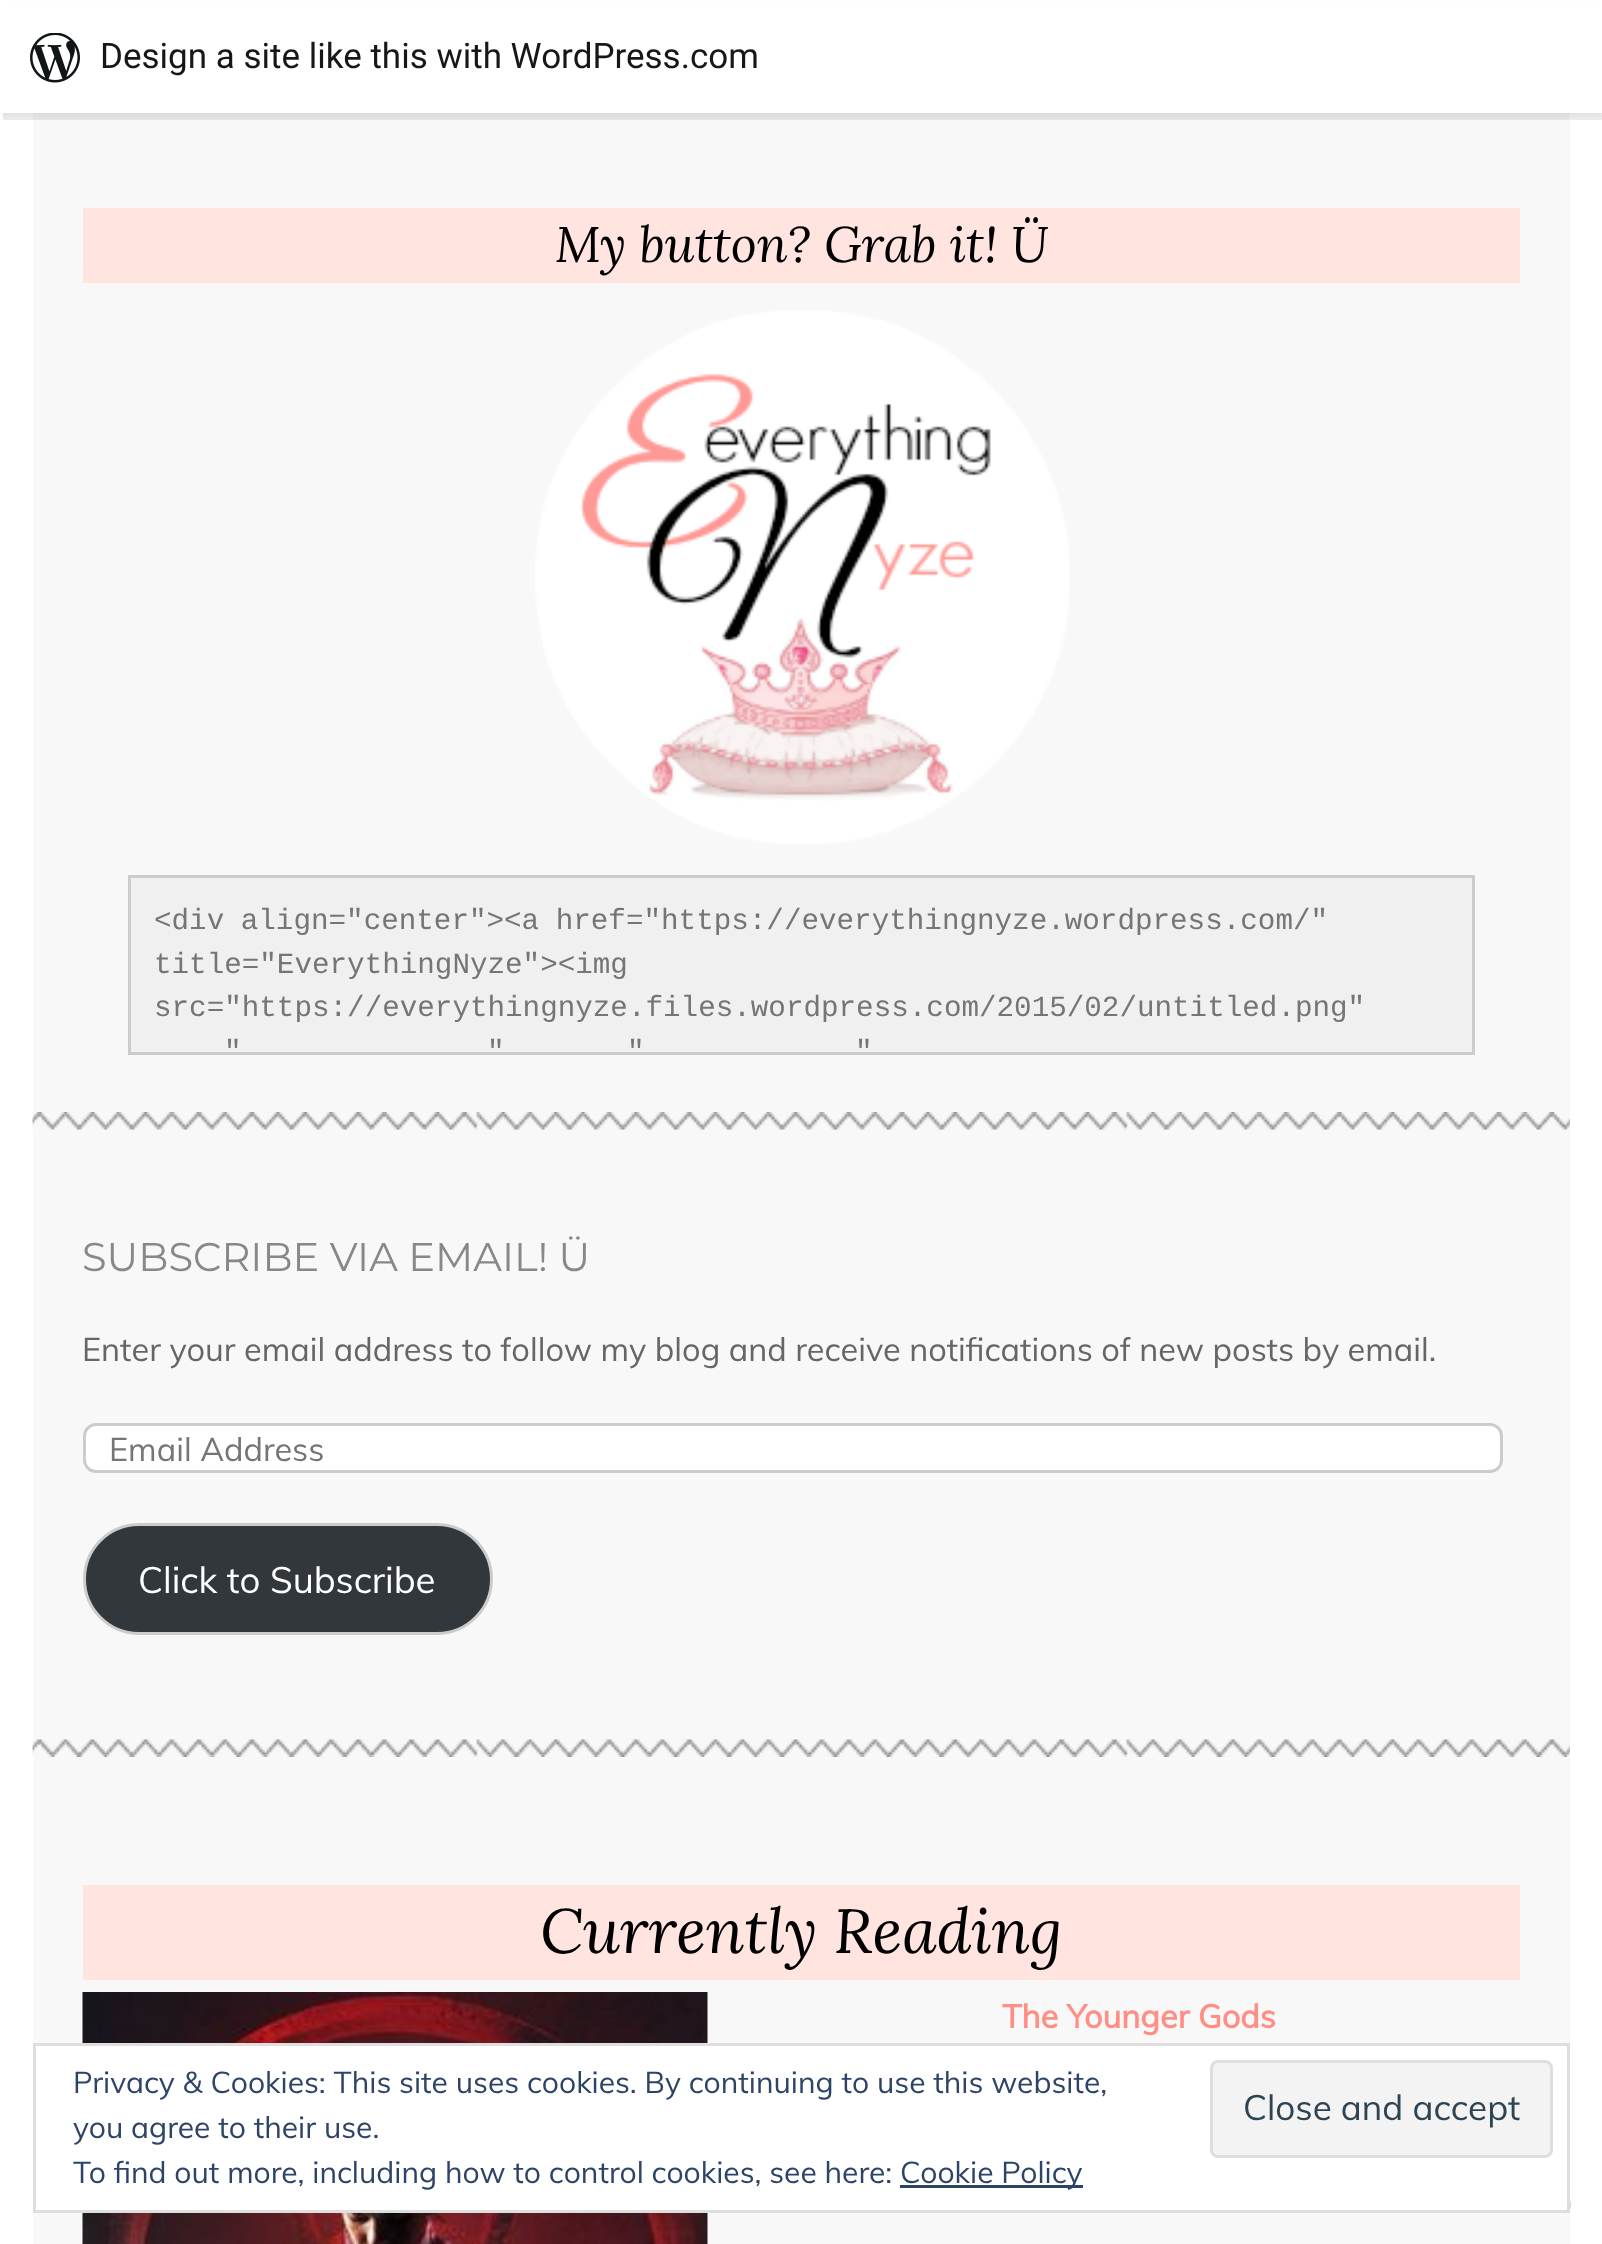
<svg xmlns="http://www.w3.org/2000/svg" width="1602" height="2244">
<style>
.a{font:35px Roboto;fill:#171717}
.b{font:italic 50px Lora;fill:#000}
.c{font:29.25px Liberation Mono;fill:#757575}
.d{font:40px Montserrat;fill:#888}
.e{font:32.5px Muli;fill:#666}
.f{font:32.5px Muli;fill:#757575}
.g{font:36.5px Muli;fill:#fff}
.h{font:italic 62.5px Lora;fill:#000}
.i{font:bold 32.5px Muli;fill:#ff8f85}
.j{font:30px Muli;fill:#2e4467}
.k{font:35px Muli;fill:#2e4453}
</style>
<rect width="100%" height="100%" fill="#fff"/>
<path fill="#f8f8f8" d="M33 113h1537v2131H33z"/>
<path fill="#0000000d" filter="blur(2.5px)" d="M0 3h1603v112H0z"/>
<path fill="#00000014" d="M3 112v8h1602v-112h-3v104z"/>
<path fill="#fff" d="M0 1h1602v112H0z"/>
<image href="1.png" x="30" y="33" width="50" height="50"/>
<image href="2.png" x="32" y="1112" width="1538" height="18"/>
<path fill="#ffe4e0" d="M83 208h1437v75H83z"/>
<image href="3.png" x="535" y="311" width="535" height="533"/>
<path fill="#f0f0f0" stroke="#ccc" stroke-width="3" d="M129.5 876.5h1344v177H129.5z"/>
<image href="4.png" x="32" y="1739" width="1538" height="18"/>
<rect fill="#fff" stroke="#ccc" stroke-width="3" x="84.5" y="1424.5" width="1417" height="47" rx="11.5"/>
<rect fill="#32373c" stroke="#ccc" stroke-width="3" x="84.5" y="1524.5" width="407" height="109" rx="54.5"/>
<path fill="#ffe4e0" d="M83 1885h1437v95H83z"/>
<image href="5.png" x="82" y="1992" width="626" height="252"/>
<image href="6.png" x="1570" y="2194" width="1" height="19"/>
<path fill="#fff" stroke="#dedede" stroke-width="3" d="M34.5 2044.5h1534v167H34.5z"/>
<rect fill="#f3f3f3" stroke="#dedede" stroke-width="3" x="1211.5" y="2061.5" width="340" height="95" rx="6.5"/>
<path fill="#2e4467" d="M900 2185h183v3H900z"/>
<text class="a" x="100" y="68">Design a site like this with WordPress.com</text>
<text class="b" x="555" y="262">My button? Grab it! Ü</text>
<text class="c" x="154" y="929" word-spacing="-1">&lt;div align="center"&gt;&lt;a href="https://everythingnyze.wordpress.com/"</text>
<text class="c" x="154" y="973">title="EverythingNyze"&gt;&lt;img</text>
<text class="c" x="154" y="1016">src="https://everythingnyze.files.wordpress.com/2015/02/untitled.png"</text>
<text class="c" x="224" y="1060">"</text>
<text class="c" x="487" y="1060">"</text>
<text class="c" x="627" y="1060">"</text>
<text class="c" x="855" y="1060">"</text>
<text class="d" x="82" y="1271">SUBSCRIBE VIA EMAIL! Ü</text>
<text class="e" x="82" y="1361">Enter your email address to follow my blog and receive notifications of new posts by email.</text>
<text class="f" x="109" y="1461">Email Address</text>
<text class="g" x="138" y="1593">Click to Subscribe</text>
<text class="h" x="540" y="1953">Currently Reading</text>
<text class="i" x="1002" y="2028">The Younger Gods</text>
<text class="j" x="73" y="2093">Privacy &amp; Cookies: This site uses cookies. By continuing to use this website,</text>
<text class="j" x="73" y="2138">you agree to their use.</text>
<text class="k" x="1243" y="2120">Close and accept</text>
<text class="j" x="73" y="2183">To find out more, including how to control cookies, see here:</text>
<text class="j" x="900" y="2183">Cookie Policy</text>
</svg>
